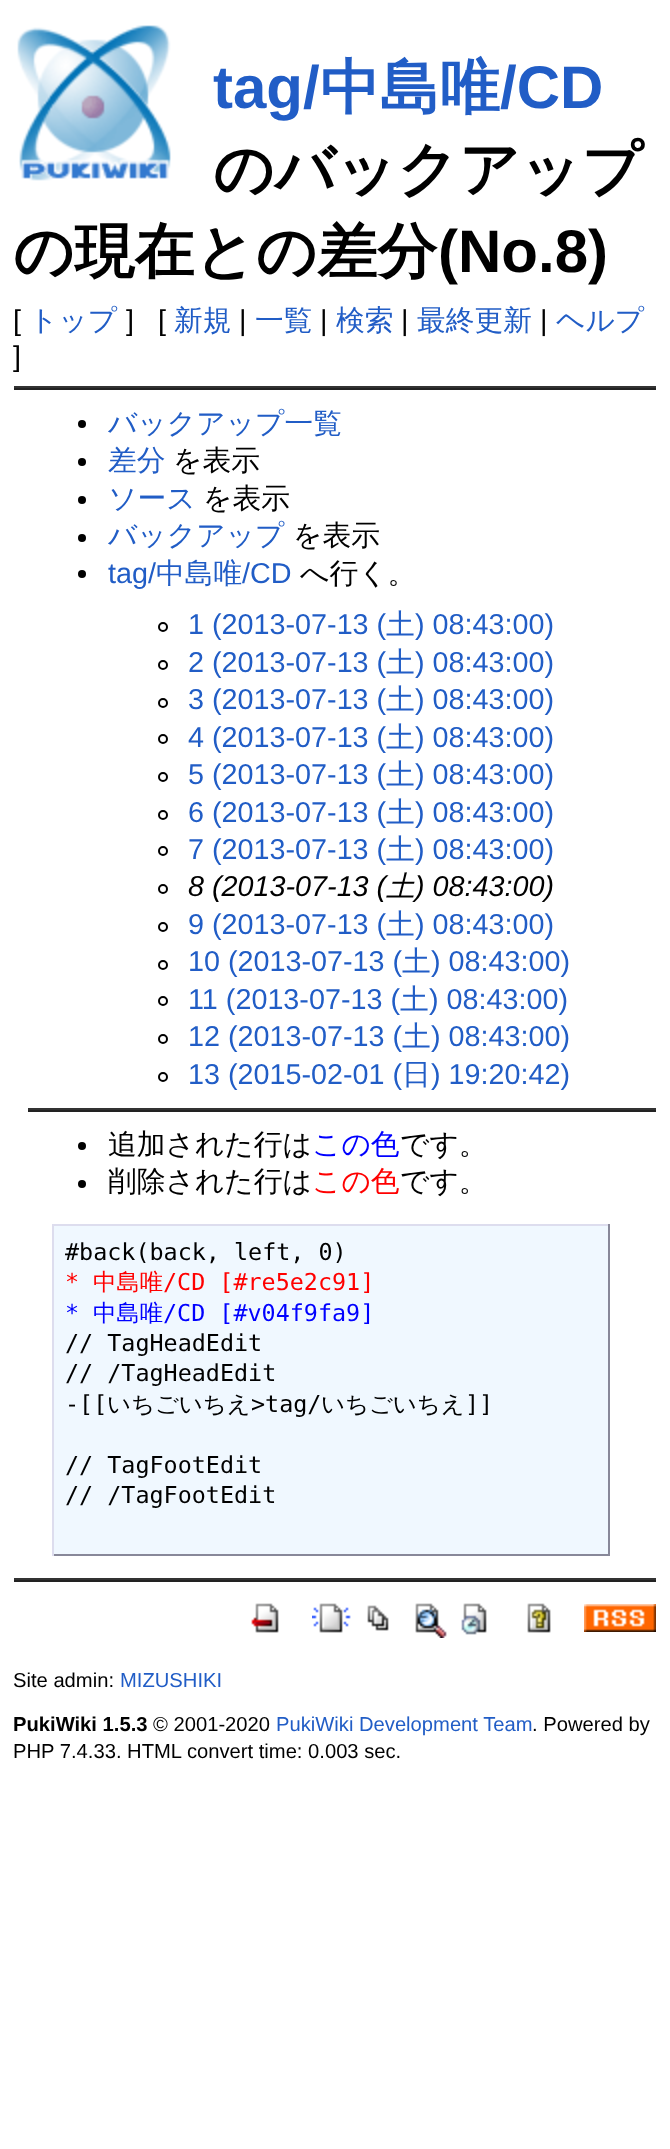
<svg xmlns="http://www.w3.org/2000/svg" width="670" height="2149">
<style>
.a{font:bold 60px Liberation Sans;fill:#215dc6}
.b{font:bold 60px WenQuanYi Zen Hei;fill:#215dc6}
.c{font:bold 60px WenQuanYi Zen Hei;fill:#000}
.d{font:bold 60px Liberation Sans;fill:#000}
.e{font:28.75px Liberation Sans;fill:#000}
.f{font:500 28.75px WenQuanYi Zen Hei;fill:#215dc6}
.g{font:500 28.75px WenQuanYi Zen Hei;fill:#000}
.h{font:28.75px Liberation Sans;fill:#215dc6}
.i{font:italic 28.75px Liberation Sans;fill:#000}
.j{font:italic 500 28.75px WenQuanYi Zen Hei;fill:#000}
.k{font:500 28.75px WenQuanYi Zen Hei;fill:#00f}
.l{font:500 28.75px WenQuanYi Zen Hei;fill:#f00}
.m{font:23.4px DejaVu Sans Mono;fill:#000}
.n{font:23.4px DejaVu Sans Mono;fill:#f00}
.o{font:500 23.4px WenQuanYi Zen Hei;fill:#f00}
.p{font:23.4px DejaVu Sans Mono;fill:#00f}
.q{font:500 23.4px WenQuanYi Zen Hei;fill:#00f}
.r{font:500 23.4px WenQuanYi Zen Hei;fill:#000}
.s{font:20.2px Liberation Sans;fill:#000}
.t{font:20.2px Liberation Sans;fill:#215dc6}
.u{font:bold 20.2px Liberation Sans;fill:#000}
</style>
<rect width="100%" height="100%" fill="#fff"/>
<image href="1.png" x="17" y="25" width="154" height="156"/>
<path fill="#333" d="M14 386h642v2H14z"/>
<path fill="#222" d="M14 388h642v2H14z"/>
<circle fill="#000" cx="82" cy="424" r="4"/>
<circle fill="#000" cx="82" cy="462" r="4"/>
<circle fill="#000" cx="82" cy="500" r="4"/>
<circle fill="#000" cx="82" cy="538" r="4"/>
<circle fill="#000" cx="82" cy="574" r="4"/>
<circle fill="none" stroke="#000" stroke-width="2" cx="163" cy="627" r="4"/>
<circle fill="none" stroke="#000" stroke-width="2" cx="163" cy="665" r="4"/>
<circle fill="none" stroke="#000" stroke-width="2" cx="163" cy="703" r="4"/>
<circle fill="none" stroke="#000" stroke-width="2" cx="163" cy="739" r="4"/>
<circle fill="none" stroke="#000" stroke-width="2" cx="163" cy="777" r="4"/>
<circle fill="none" stroke="#000" stroke-width="2" cx="163" cy="815" r="4"/>
<circle fill="none" stroke="#000" stroke-width="2" cx="163" cy="851" r="4"/>
<circle fill="none" stroke="#000" stroke-width="2" cx="163" cy="889" r="4"/>
<circle fill="none" stroke="#000" stroke-width="2" cx="163" cy="927" r="4"/>
<circle fill="none" stroke="#000" stroke-width="2" cx="163" cy="965" r="4"/>
<circle fill="none" stroke="#000" stroke-width="2" cx="163" cy="1001" r="4"/>
<circle fill="none" stroke="#000" stroke-width="2" cx="163" cy="1039" r="4"/>
<circle fill="none" stroke="#000" stroke-width="2" cx="163" cy="1077" r="4"/>
<path fill="#333" d="M28 1108h628v2H28z"/>
<path fill="#222" d="M28 1110h628v2H28z"/>
<circle fill="#000" cx="82" cy="1146" r="4"/>
<circle fill="#000" cx="82" cy="1184" r="4"/>
<path fill="#f0f8ff" d="M54 1226h554v328H54z"/>
<path fill="#dde" d="M52 1224h558v2H52z"/>
<path fill="#889" d="M608 1224h2v332H608z"/>
<path fill="#889" d="M52 1554h558v2H52z"/>
<path fill="#dde" d="M52 1224h2v332H52z"/>
<path fill="#333" d="M14 1578h642v2H14z"/>
<path fill="#222" d="M14 1580h642v2H14z"/>
<image href="2.png" x="251" y="1603" width="28" height="30"/>
<image href="3.png" x="312" y="1603" width="39" height="30"/>
<image href="4.png" x="367" y="1605" width="22" height="26"/>
<image href="5.png" x="415" y="1603" width="32" height="35"/>
<image href="6.png" x="461" y="1603" width="26" height="32"/>
<image href="7.png" x="527" y="1603" width="24" height="30"/>
<image href="8.png" x="584" y="1604" width="72" height="28"/>
<text class="a" x="213" y="108">tag/</text>
<text class="b" x="320" y="108">中島唯</text>
<text class="a" x="500" y="108">/CD</text>
<text class="c" x="213" y="190">のバックアップ</text>
<text class="c" x="13" y="272">の現在との差分</text>
<text class="d" x="438" y="272">(No.8)</text>
<text class="e" x="13" y="330">[</text>
<text class="f" x="29" y="330">トップ</text>
<text class="e" x="126" y="330">]</text>
<text class="e" x="158" y="330">[</text>
<text class="f" x="174" y="330">新規</text>
<text class="e" x="239" y="330">|</text>
<text class="f" x="255" y="330">一覧</text>
<text class="e" x="320" y="330">|</text>
<text class="f" x="336" y="330">検索</text>
<text class="e" x="401" y="330">|</text>
<text class="f" x="417" y="330">最終更新</text>
<text class="e" x="540" y="330">|</text>
<text class="f" x="556" y="330">ヘルプ</text>
<text class="e" x="13" y="366">]</text>
<text class="f" x="108" y="433">バックアップ一覧</text>
<text class="f" x="108" y="470">差分</text>
<text class="g" x="173" y="470">を表示</text>
<text class="f" x="108" y="508">ソース</text>
<text class="g" x="203" y="508">を表示</text>
<text class="f" x="108" y="545">バックアップ</text>
<text class="g" x="293" y="545">を表示</text>
<text class="h" x="108" y="583">tag/</text>
<text class="f" x="156" y="583">中島唯</text>
<text class="h" x="242" y="583">/CD</text>
<text class="g" x="300" y="583">へ行く。</text>
<text class="h" x="188" y="634">1 (2013-07-13 (</text>
<text class="f" x="386" y="634">土</text>
<text class="h" x="415" y="634">) 08:43:00)</text>
<text class="h" x="188" y="672">2 (2013-07-13 (</text>
<text class="f" x="386" y="672">土</text>
<text class="h" x="415" y="672">) 08:43:00)</text>
<text class="h" x="188" y="709">3 (2013-07-13 (</text>
<text class="f" x="386" y="709">土</text>
<text class="h" x="415" y="709">) 08:43:00)</text>
<text class="h" x="188" y="747">4 (2013-07-13 (</text>
<text class="f" x="386" y="747">土</text>
<text class="h" x="415" y="747">) 08:43:00)</text>
<text class="h" x="188" y="784">5 (2013-07-13 (</text>
<text class="f" x="386" y="784">土</text>
<text class="h" x="415" y="784">) 08:43:00)</text>
<text class="h" x="188" y="822">6 (2013-07-13 (</text>
<text class="f" x="386" y="822">土</text>
<text class="h" x="415" y="822">) 08:43:00)</text>
<text class="h" x="188" y="859">7 (2013-07-13 (</text>
<text class="f" x="386" y="859">土</text>
<text class="h" x="415" y="859">) 08:43:00)</text>
<text class="i" x="188" y="896">8 (2013-07-13 (</text>
<text class="j" x="386" y="896">土</text>
<text class="i" x="415" y="896">) 08:43:00)</text>
<text class="h" x="188" y="934">9 (2013-07-13 (</text>
<text class="f" x="386" y="934">土</text>
<text class="h" x="415" y="934">) 08:43:00)</text>
<text class="h" x="188" y="971">10 (2013-07-13 (</text>
<text class="f" x="402" y="971">土</text>
<text class="h" x="431" y="971">) 08:43:00)</text>
<text class="h" x="188" y="1009">11 (2013-07-13 (</text>
<text class="f" x="400" y="1009">土</text>
<text class="h" x="429" y="1009">) 08:43:00)</text>
<text class="h" x="188" y="1046">12 (2013-07-13 (</text>
<text class="f" x="402" y="1046">土</text>
<text class="h" x="431" y="1046">) 08:43:00)</text>
<text class="h" x="188" y="1084">13 (2015-02-01 (</text>
<text class="f" x="402" y="1084">日</text>
<text class="h" x="431" y="1084">) 19:20:42)</text>
<text class="g" x="108" y="1154">追加された行は</text>
<text class="k" x="312" y="1154">この色</text>
<text class="g" x="400" y="1154">です。</text>
<text class="g" x="108" y="1191">削除された行は</text>
<text class="l" x="312" y="1191">この色</text>
<text class="g" x="400" y="1191">です。</text>
<text class="m" x="65" y="1260">#back(back, left, 0)</text>
<text class="n" x="65" y="1290">*</text>
<text class="o" x="93" y="1290">中島唯</text>
<text class="n" x="163" y="1290">/CD [#re5e2c91]</text>
<text class="p" x="65" y="1321">*</text>
<text class="q" x="93" y="1321">中島唯</text>
<text class="p" x="163" y="1321">/CD [#v04f9fa9]</text>
<text class="m" x="65" y="1351">// TagHeadEdit</text>
<text class="m" x="65" y="1381">// /TagHeadEdit</text>
<text class="m" x="65" y="1412">-[[</text>
<text class="r" x="107" y="1412">いちごいちえ</text>
<text class="m" x="251" y="1412">&gt;tag/</text>
<text class="r" x="321" y="1412">いちごいちえ</text>
<text class="m" x="465" y="1412">]]</text>
<text class="m" x="65" y="1473">// TagFootEdit</text>
<text class="m" x="65" y="1503">// /TagFootEdit</text>
<text class="s" x="13" y="1687">Site admin:</text>
<text class="t" x="120" y="1687">MIZUSHIKI</text>
<text class="u" x="13" y="1731">PukiWiki 1.5.3</text>
<text class="s" x="153" y="1731">© 2001-2020</text>
<text class="t" x="276" y="1731">PukiWiki Development Team</text>
<text class="s" x="532" y="1731">. Powered by</text>
<text class="s" x="13" y="1758">PHP 7.4.33. HTML convert time: 0.003 sec.</text>
</svg>
